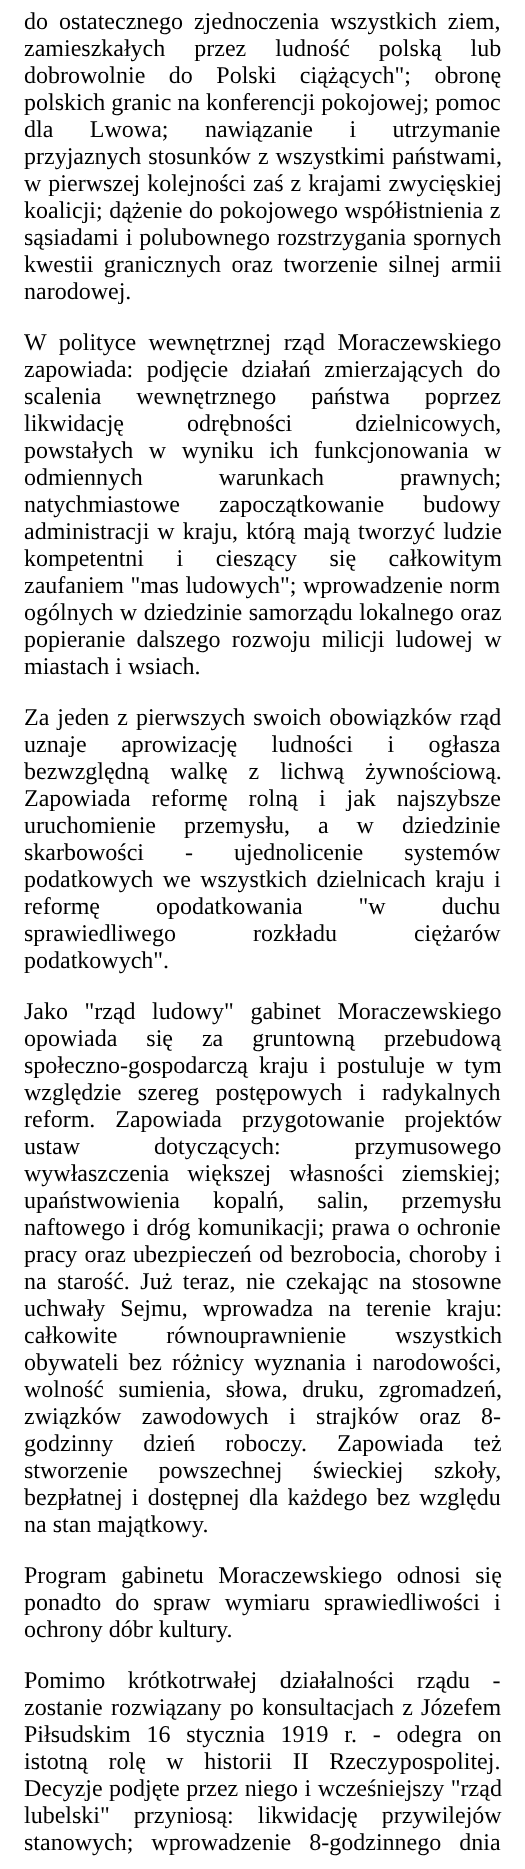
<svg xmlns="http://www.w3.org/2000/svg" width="525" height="1869">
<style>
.a{font:24px Liberation Serif;fill:#000}
</style>
<rect width="100%" height="100%" fill="#fff"/>
<text class="a" x="24" y="29" word-spacing="5">do ostatecznego zjednoczenia wszystkich ziem,</text>
<text class="a" x="24" y="56" word-spacing="23">zamieszkałych przez ludność polską lub</text>
<text class="a" x="24" y="83" word-spacing="17.5">dobrowolnie do Polski ciążących"; obronę</text>
<text class="a" x="24" y="110">polskich granic na konferencji pokojowej; pomoc</text>
<text class="a" x="24" y="137" word-spacing="30.5">dla Lwowa; nawiązanie i utrzymanie</text>
<text class="a" x="24" y="164" word-spacing="1">przyjaznych stosunków z wszystkimi państwami,</text>
<text class="a" x="24" y="191" word-spacing="1">w pierwszej kolejności zaś z krajami zwycięskiej</text>
<text class="a" x="24" y="218" word-spacing="0.5">koalicji; dążenie do pokojowego współistnienia z</text>
<text class="a" x="24" y="245" word-spacing="1">sąsiadami i polubownego rozstrzygania spornych</text>
<text class="a" x="24" y="272" word-spacing="4.5">kwestii granicznych oraz tworzenie silnej armii</text>
<text class="a" x="24" y="299">narodowej.</text>
<text class="a" x="24" y="350" word-spacing="6.5">W polityce wewnętrznej rząd Moraczewskiego</text>
<text class="a" x="24" y="377" word-spacing="7.5">zapowiada: podjęcie działań zmierzających do</text>
<text class="a" x="24" y="404" word-spacing="29">scalenia wewnętrznego państwa poprzez</text>
<text class="a" x="24" y="431" word-spacing="57">likwidację odrębności dzielnicowych,</text>
<text class="a" x="24" y="458" word-spacing="9.5">powstałych w wyniku ich funkcjonowania w</text>
<text class="a" x="24" y="485" word-spacing="70">odmiennych warunkach prawnych;</text>
<text class="a" x="24" y="512" word-spacing="33">natychmiastowe zapoczątkowanie budowy</text>
<text class="a" x="24" y="539" word-spacing="2">administracji w kraju, którą mają tworzyć ludzie</text>
<text class="a" x="24" y="566" word-spacing="26.5">kompetentni i cieszący się całkowitym</text>
<text class="a" x="24" y="593" word-spacing="0.5">zaufaniem "mas ludowych"; wprowadzenie norm</text>
<text class="a" x="24" y="620" word-spacing="0.5">ogólnych w dziedzinie samorządu lokalnego oraz</text>
<text class="a" x="24" y="647" word-spacing="5.25">popieranie dalszego rozwoju milicji ludowej w</text>
<text class="a" x="24" y="674">miastach i wsiach.</text>
<text class="a" x="24" y="725" word-spacing="2">Za jeden z pierwszych swoich obowiązków rząd</text>
<text class="a" x="24" y="752" word-spacing="28.5">uznaje aprowizację ludności i ogłasza</text>
<text class="a" x="24" y="779" word-spacing="15">bezwzględną walkę z lichwą żywnościową.</text>
<text class="a" x="24" y="806" word-spacing="15">Zapowiada reformę rolną i jak najszybsze</text>
<text class="a" x="24" y="833" word-spacing="22">uruchomienie przemysłu, a w dziedzinie</text>
<text class="a" x="24" y="860" word-spacing="35">skarbowości - ujednolicenie systemów</text>
<text class="a" x="24" y="887" word-spacing="3.5">podatkowych we wszystkich dzielnicach kraju i</text>
<text class="a" x="24" y="914" word-spacing="50">reformę opodatkowania "w duchu</text>
<text class="a" x="24" y="941" word-spacing="71">sprawiedliwego rozkładu ciężarów</text>
<text class="a" x="24" y="968">podatkowych".</text>
<text class="a" x="24" y="1019" word-spacing="10.5">Jako "rząd ludowy" gabinet Moraczewskiego</text>
<text class="a" x="24" y="1046" word-spacing="23">opowiada się za gruntowną przebudową</text>
<text class="a" x="24" y="1073" word-spacing="5">społeczno-gospodarczą kraju i postuluje w tym</text>
<text class="a" x="24" y="1100" word-spacing="10.5">względzie szereg postępowych i radykalnych</text>
<text class="a" x="24" y="1127" word-spacing="14">reform. Zapowiada przygotowanie projektów</text>
<text class="a" x="24" y="1154" word-spacing="68">ustaw dotyczących: przymusowego</text>
<text class="a" x="24" y="1181" word-spacing="12">wywłaszczenia większej własności ziemskiej;</text>
<text class="a" x="24" y="1208" word-spacing="27">upaństwowienia kopalń, salin, przemysłu</text>
<text class="a" x="24" y="1235" word-spacing="1.25">naftowego i dróg komunikacji; prawa o ochronie</text>
<text class="a" x="24" y="1262" word-spacing="1.25">pracy oraz ubezpieczeń od bezrobocia, choroby i</text>
<text class="a" x="24" y="1289" word-spacing="4.5">na starość. Już teraz, nie czekając na stosowne</text>
<text class="a" x="24" y="1316" word-spacing="9">uchwały Sejmu, wprowadza na terenie kraju:</text>
<text class="a" x="24" y="1343" word-spacing="43">całkowite równouprawnienie wszystkich</text>
<text class="a" x="24" y="1370" word-spacing="4">obywateli bez różnicy wyznania i narodowości,</text>
<text class="a" x="24" y="1397" word-spacing="8.5">wolność sumienia, słowa, druku, zgromadzeń,</text>
<text class="a" x="24" y="1424" word-spacing="14.5">związków zawodowych i strajków oraz 8-</text>
<text class="a" x="24" y="1451" word-spacing="24">godzinny dzień roboczy. Zapowiada też</text>
<text class="a" x="24" y="1478" word-spacing="24.5">stworzenie powszechnej świeckiej szkoły,</text>
<text class="a" x="24" y="1505" word-spacing="3.25">bezpłatnej i dostępnej dla każdego bez względu</text>
<text class="a" x="24" y="1532">na stan majątkowy.</text>
<text class="a" x="24" y="1583" word-spacing="8.5">Program gabinetu Moraczewskiego odnosi się</text>
<text class="a" x="24" y="1610" word-spacing="8">ponadto do spraw wymiaru sprawiedliwości i</text>
<text class="a" x="24" y="1637">ochrony dóbr kultury.</text>
<text class="a" x="24" y="1688" word-spacing="16.5">Pomimo krótkotrwałej działalności rządu -</text>
<text class="a" x="24" y="1715" word-spacing="2.25">zostanie rozwiązany po konsultacjach z Józefem</text>
<text class="a" x="24" y="1742" word-spacing="9.75">Piłsudskim 16 stycznia 1919 r. - odegra on</text>
<text class="a" x="24" y="1769" word-spacing="14.5">istotną rolę w historii II Rzeczypospolitej.</text>
<text class="a" x="24" y="1796" word-spacing="0.5">Decyzje podjęte przez niego i wcześniejszy "rząd</text>
<text class="a" x="24" y="1823" word-spacing="18">lubelski" przyniosą: likwidację przywilejów</text>
<text class="a" x="24" y="1850" word-spacing="12">stanowych; wprowadzenie 8-godzinnego dnia</text>
</svg>
